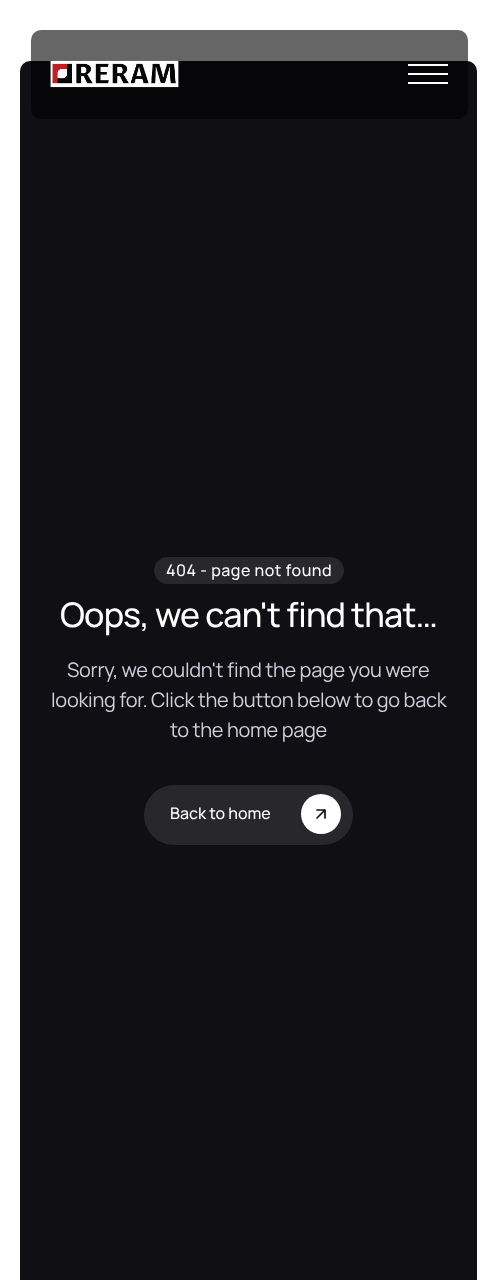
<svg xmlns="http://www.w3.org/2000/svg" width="497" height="1280">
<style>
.a{font:500 16px Manrope;letter-spacing:0.5px;fill:#fff}
.b{font:500 34px Manrope;letter-spacing:-0.8px;fill:#fff}
.c{font:20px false;letter-spacing:-0.3px;fill:#d0d1db}
.d{font:500 16px Manrope;fill:#fff}
</style>
<rect width="100%" height="100%" fill="#fff"/>
<rect fill="#101014" x="20" y="61" width="457" height="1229" rx="10"/>
<rect fill="#00000099" x="31" y="30" width="437" height="89" rx="10"/>
<image href="1.png" x="50" y="60" width="129" height="28"/>
<path fill="#fff" d="M408 64h40v2H408z"/>
<path fill="#fff" d="M408 73h40v2H408z"/>
<path fill="#fff" d="M408 82h40v2H408z"/>
<rect fill="#28282c" x="154" y="557" width="190" height="27" rx="13.5"/>
<rect fill="#28282c" x="144" y="785" width="209" height="60" rx="30"/>
<circle fill="#fff" cx="321" cy="814" r="20"/>
<path fill="none" stroke="#101014" stroke-width="1.7" stroke-linecap="round" stroke-linejoin="round" d="M317 818l8-8m-8 0h8v8"/>
<text class="a" x="166" y="576">404 - page not found</text>
<text class="b" x="60" y="627">Oops, we can't find that…</text>
<text class="c" x="67" y="677">Sorry, we couldn't find the page you were</text>
<text class="c" x="51" y="707">looking for. Click the button below to go back</text>
<text class="c" x="170" y="737">to the home page</text>
<text class="d" x="170" y="819">Back to home</text>
</svg>
